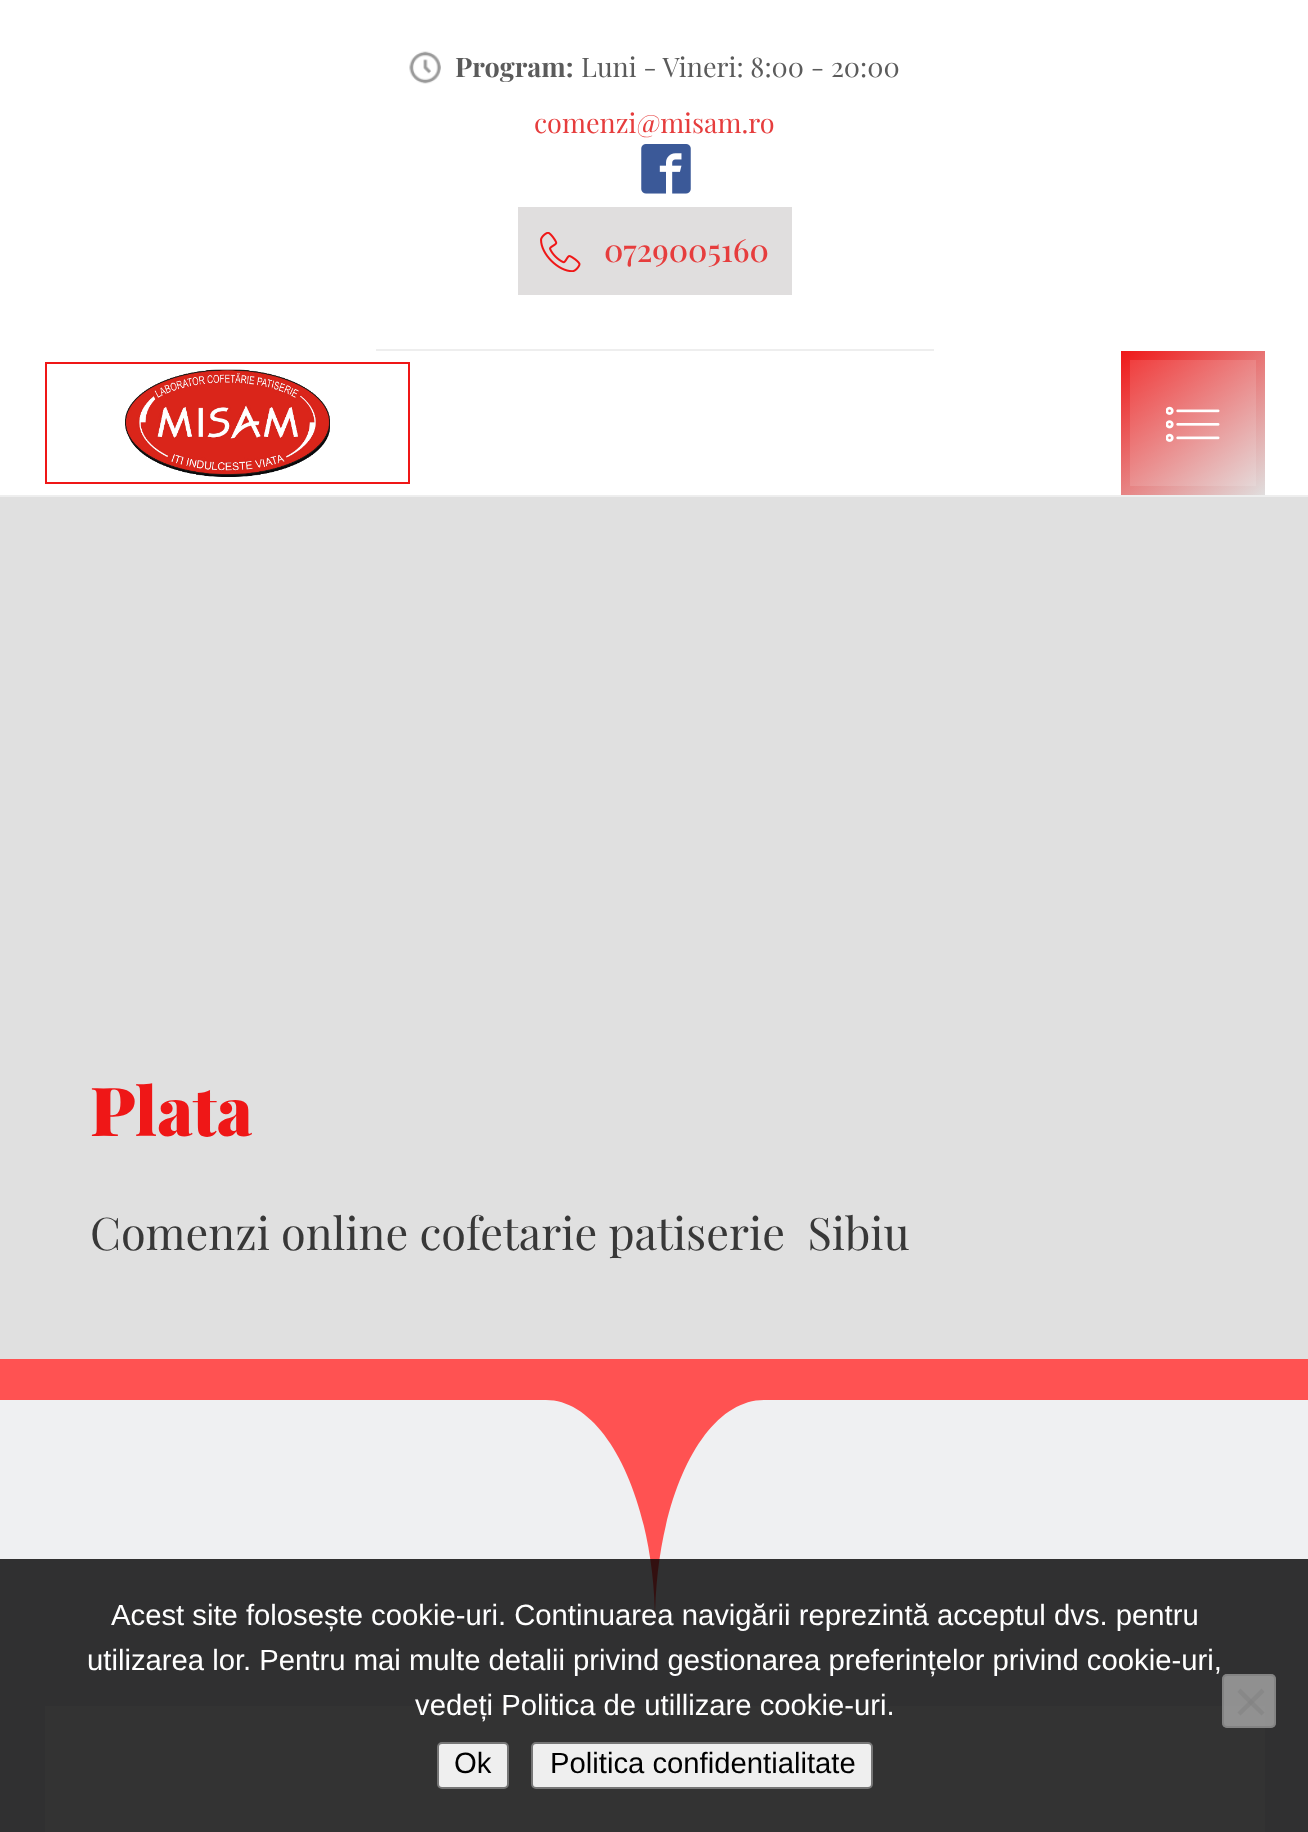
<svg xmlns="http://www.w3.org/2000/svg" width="1308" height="1832">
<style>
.a{font:bold 27px Playfair Display;fill:#5b5b5b}
.b{font:27px Playfair Display;fill:#5b5b5b}
.c{font:27px Playfair Display;fill:#e63d3d}
.d{font:500 31.5px Playfair Display;fill:#e63d3d}
.e{font:900 67.5px Playfair Display;fill:#ef1717}
.f{font:45px Playfair Display;fill:#383838}
.g{font:29.25px Liberation Sans;fill:#fff}
.h{font:29.25px Liberation Sans;fill:#000}
</style>
<defs>
<linearGradient id="g1" gradientUnits="userSpaceOnUse" x1="1127" y1="345" x2="1258" y2="501"><stop offset="0" stop-color="#ef1717"/><stop offset="1" stop-color="#e0dede"/></linearGradient>
<linearGradient id="g2" gradientUnits="userSpaceOnUse" x1="1127" y1="345" x2="1258" y2="501"><stop offset="0" stop-color="#f13333"/><stop offset="1" stop-color="#e4e2e2"/></linearGradient>
</defs>
<rect width="100%" height="100%" fill="#fff"/>
<path fill="#eee" d="M0 495h1308v2H0z"/>
<path fill="#eee" d="M376 349h558v2H376z"/>
<image href="1.png" x="409" y="51" width="32" height="33"/>
<image href="2.png" x="641" y="144" width="50" height="50"/>
<path fill="#e0dede" d="M518 207h274v88H518z"/>
<image href="3.png" x="540" y="232" width="41" height="40"/>
<path fill="none" stroke="#ef1717" stroke-width="2" d="M46 363h363v120H46z"/>
<image href="4.png" x="125" y="369" width="205" height="108"/>
<path fill="url(#g1)" d="M1121 351h144v144H1121z"/>
<path fill="url(#g2)" d="M1130 360h126v126H1130z"/>
<image href="5.png" x="1166" y="406" width="54" height="36"/>
<path fill="#e0e0e0" d="M0 497h1308v862H0z"/>
<path fill="#eff0f2" d="M0 1400h1308v432H0z"/>
<path fill="#ff5252" d="M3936 1359v41h-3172c-61 0-109 99-109 224c0-123-49-224-109-224h-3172v-41z"/>
<path fill="#fff" d="M45 1706h1220v126H45z"/>
<path fill="#000000cc" d="M0 1559h1308v273H0z"/>
<rect fill="#efefef80" x="1222" y="1674" width="54" height="54" rx="5"/>
<rect fill="none" stroke="#76767680" stroke-width="2" x="1223" y="1675" width="52" height="52" rx="4"/>
<path fill="#888" d="M1261.5 1688.5l3 3.5l-24 23.5l-3-3z"/>
<path fill="#80808080" d="M1237.5 1692l3-3.5l24 24l-3 3z"/>
<rect fill="#efefef" stroke="#767676" stroke-width="2" x="438" y="1743" width="70" height="45" rx="4"/>
<rect fill="#efefef" stroke="#767676" stroke-width="2" x="532" y="1743" width="340" height="45" rx="4"/>
<text class="a" x="455" y="77">Program:</text>
<text class="b" x="581" y="77">Luni - Vineri: 8:00 - 20:00</text>
<text class="c" x="534" y="133">comenzi@misam.ro</text>
<text class="d" x="604" y="262">0729005160</text>
<text class="e" x="90" y="1136">Plata</text>
<text class="f" xml:space="preserve" x="90" y="1250">Comenzi online cofetarie patiserie  Sibiu</text>
<text class="g" x="111" y="1625">Acest site folosește cookie-uri. Continuarea navigării reprezintă acceptul dvs. pentru</text>
<text class="g" x="87" y="1670">utilizarea lor. Pentru mai multe detalii privind gestionarea preferințelor privind cookie-uri,</text>
<text class="g" x="415" y="1715">vedeți Politica de utillizare cookie-uri.</text>
<text class="h" x="454" y="1773">Ok</text>
<text class="h" x="550" y="1773">Politica confidentialitate</text>
</svg>
